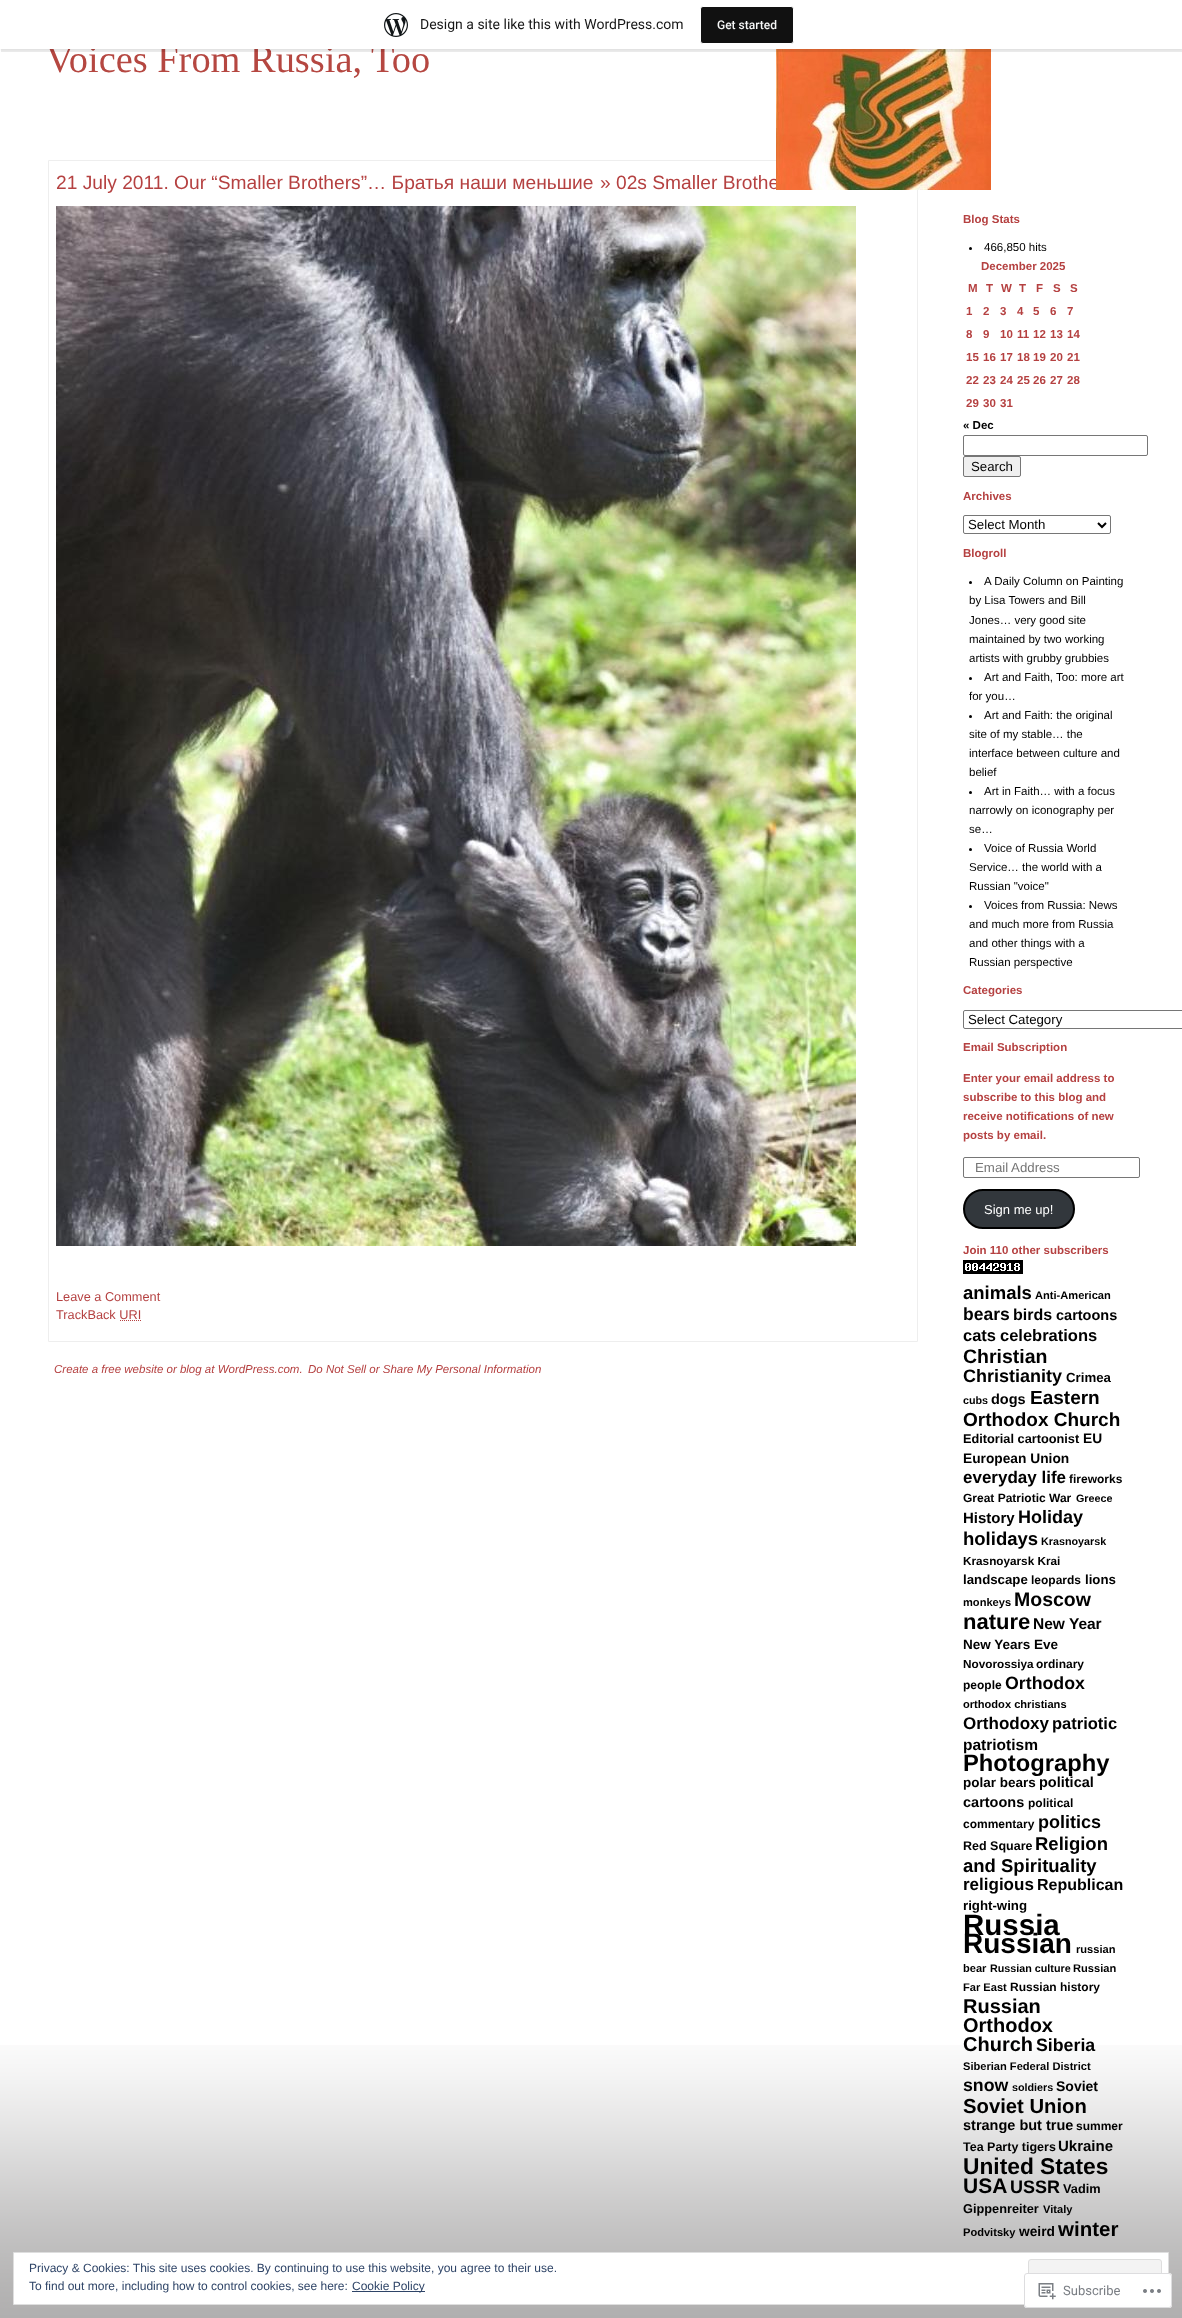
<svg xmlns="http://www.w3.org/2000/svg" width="1182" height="2318">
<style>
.a{font:38.4px Liberation Serif;fill:#b54741}
.b{font:19.2px Liberation Sans;fill:#b54141}
.c{font:14px Roboto;fill:#171717}
.d{font:500 12px Roboto;fill:#f6f7f7}
.e{font:12.75px Liberation Sans;fill:#b54141}
.f{font:bold 11.5px Liberation Sans;fill:#b54141}
.g{font:11.5px Liberation Sans;fill:#000}
.h{font:bold 11.5px Liberation Sans;fill:#000}
.i{font:13.25px Liberation Sans;fill:#000}
.j{font:13.25px Liberation Sans;fill:#757575}
.k{font:13px Liberation Sans;fill:#fff}
.l{font:bold 18.5px Liberation Sans;fill:#000}
.m{font:bold 11.1px Liberation Sans;fill:#000}
.n{font:bold 17.5px Liberation Sans;fill:#000}
.o{font:bold 16px Liberation Sans;fill:#000}
.p{font:bold 14.5px Liberation Sans;fill:#000}
.q{font:bold 16.5px Liberation Sans;fill:#000}
.r{font:bold 19.5px Liberation Sans;fill:#000}
.s{font:bold 18px Liberation Sans;fill:#000}
.t{font:bold 13.25px Liberation Sans;fill:#000}
.u{font:bold 10.75px Liberation Sans;fill:#000}
.v{font:bold 19px Liberation Sans;fill:#000}
.w{font:bold 12.75px Liberation Sans;fill:#000}
.x{font:bold 13.75px Liberation Sans;fill:#000}
.y{font:bold 17px Liberation Sans;fill:#000}
.z{font:bold 12px Liberation Sans;fill:#000}
.a1{font:bold 15px Liberation Sans;fill:#000}
.b1{font:bold 11.75px Liberation Sans;fill:#000}
.c1{font:bold 22px Liberation Sans;fill:#000}
.d1{font:bold 15.5px Liberation Sans;fill:#000}
.e1{font:bold 13.5px Liberation Sans;fill:#000}
.f1{font:bold 17.75px Liberation Sans;fill:#000}
.g1{font:bold 23.75px Liberation Sans;fill:#000}
.h1{font:bold 12.5px Liberation Sans;fill:#000}
.i1{font:bold 29.5px Liberation Sans;fill:#000}
.j1{font:bold 28px Liberation Sans;fill:#000}
.k1{font:bold 20px Liberation Sans;fill:#000}
.l1{font:bold 14px Liberation Sans;fill:#000}
.m1{font:bold 20.25px Liberation Sans;fill:#000}
.n1{font:bold 22.75px Liberation Sans;fill:#000}
.o1{font:bold 21px Liberation Sans;fill:#000}
.p1{font:bold 20.5px Liberation Sans;fill:#000}
.q1{font:italic 11.5px Liberation Sans;fill:#b54141}
.r1{font:12px Liberation Sans;fill:#2e4467}
.s1{font:13px Roboto;fill:#7a7e84}
</style>
<rect width="100%" height="100%" fill="#fff"/>
<image href="1.png" x="0" y="2045" width="1182" height="273"/>
<path fill="none" stroke="#eee" d="M48.5 160.5h869v1181H48.5z"/>
<image href="4.png" x="56" y="206" width="800" height="1040"/>
<path fill="none" stroke="#b54141" stroke-dasharray="1 1" d="M120 1320.5h22"/>
<circle fill="#000" cx="970.5" cy="248.5" r="1.5"/>
<rect fill="none" stroke="#767676" x="963.5" y="435.5" width="184" height="20" rx="1.5"/>
<rect fill="#efefef" stroke="#767676" x="963.5" y="456.5" width="57" height="20" rx="1.5"/>
<rect fill="none" stroke="#767676" x="963.5" y="515.5" width="147" height="18" rx="1.5"/>
<path fill="none" stroke="#000" stroke-width="2" d="M1098 523l4 4l4-4"/>
<circle fill="#000" cx="970.5" cy="582.5" r="1.5"/>
<circle fill="#000" cx="970.5" cy="678.5" r="1.5"/>
<circle fill="#000" cx="970.5" cy="716.5" r="1.5"/>
<circle fill="#000" cx="970.5" cy="792.5" r="1.5"/>
<circle fill="#000" cx="970.5" cy="849.5" r="1.5"/>
<circle fill="#000" cx="970.5" cy="906.5" r="1.5"/>
<rect fill="none" stroke="#767676" x="963.5" y="1010.5" width="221" height="18" rx="1.5"/>
<rect fill="none" stroke="#767676" x="963.5" y="1157.5" width="176" height="20" rx="1.5"/>
<rect fill="#32373c" stroke="#000" stroke-width="2" x="964" y="1190" width="110" height="38" rx="19"/>
<image href="5.png" x="963" y="1260" width="60" height="14"/>
<path fill="#fff" stroke="#dedede" d="M13.5 2252.5h1155v52H13.5z"/>
<rect fill="#f3f3f3" stroke="#dedede" x="1028.5" y="2259.5" width="133" height="38" rx="2.5"/>
<path fill="#2e4467" d="M352 2291h73v1H352z"/>
<rect fill="#fffffffa" x="1024" y="2273" width="148" height="35" rx="3"/>
<rect fill="none" stroke="#dcdcdefa" x="1024.5" y="2273.5" width="147" height="34" rx="2.5"/>
<image href="6.png" x="1038" y="2283" width="18" height="17"/>
<image href="7.png" x="1143" y="2289" width="18" height="4"/>
<text class="a" x="46" y="72">Voices From Russia, Too</text>
<text class="b" x="56" y="189">21 July 2011. Our “Smaller Brothers”… Братья наши меньшие</text>
<text class="b" x="600" y="189">» 02s Smaller Brothe</text>
<image href="3.png" x="776" y="49" width="215" height="141"/>
<path fill="#0000000d" filter="blur(1px)" d="M0 1h1182v49H0z"/>
<path fill="#fff" d="M0 0h1182v49H0z"/>
<image href="2.png" x="384" y="13" width="24" height="24"/>
<text class="c" x="420" y="29">Design a site like this with WordPress.com</text>
<rect fill="#111" stroke="#fff" x="700.5" y="6.5" width="93" height="37" rx="2.5"/>
<text class="d" x="717" y="29">Get started</text>
<path fill="#00000014" d="M1 49v3h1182v-49h-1v46z"/>
<text class="e" x="56" y="1301">Leave a Comment</text>
<text class="e" x="56" y="1319">TrackBack URI</text>
<text class="f" x="963" y="223">Blog Stats</text>
<text class="g" x="984" y="251">466,850 hits</text>
<text class="f" x="981" y="270">December 2025</text>
<text class="f" x="968" y="292">M</text>
<text class="f" x="986" y="292">T</text>
<text class="f" x="1001" y="292">W</text>
<text class="f" x="1019" y="292">T</text>
<text class="f" x="1036" y="292">F</text>
<text class="f" x="1053" y="292">S</text>
<text class="f" x="1070" y="292">S</text>
<text class="f" x="966" y="315">1</text>
<text class="f" x="983" y="315">2</text>
<text class="f" x="1000" y="315">3</text>
<text class="f" x="1017" y="315">4</text>
<text class="f" x="1033" y="315">5</text>
<text class="f" x="1050" y="315">6</text>
<text class="f" x="1067" y="315">7</text>
<text class="f" x="966" y="338">8</text>
<text class="f" x="983" y="338">9</text>
<text class="f" x="1000" y="338">10</text>
<text class="f" x="1017" y="338">11</text>
<text class="f" x="1033" y="338">12</text>
<text class="f" x="1050" y="338">13</text>
<text class="f" x="1067" y="338">14</text>
<text class="f" x="966" y="361">15</text>
<text class="f" x="983" y="361">16</text>
<text class="f" x="1000" y="361">17</text>
<text class="f" x="1017" y="361">18</text>
<text class="f" x="1033" y="361">19</text>
<text class="f" x="1050" y="361">20</text>
<text class="f" x="1067" y="361">21</text>
<text class="f" x="966" y="384">22</text>
<text class="f" x="983" y="384">23</text>
<text class="f" x="1000" y="384">24</text>
<text class="f" x="1017" y="384">25</text>
<text class="f" x="1033" y="384">26</text>
<text class="f" x="1050" y="384">27</text>
<text class="f" x="1067" y="384">28</text>
<text class="f" x="966" y="407">29</text>
<text class="f" x="983" y="407">30</text>
<text class="f" x="1000" y="407">31</text>
<text class="h" x="963" y="429">« Dec</text>
<text class="i" x="971" y="471">Search</text>
<text class="f" x="963" y="500">Archives</text>
<text class="i" x="968" y="529">Select Month</text>
<text class="f" x="963" y="557">Blogroll</text>
<text class="g" x="984" y="585">A Daily Column on Painting</text>
<text class="g" x="969" y="604">by Lisa Towers and Bill</text>
<text class="g" x="969" y="624">Jones… very good site</text>
<text class="g" x="969" y="643">maintained by two working</text>
<text class="g" x="969" y="662">artists with grubby grubbies</text>
<text class="g" x="984" y="681">Art and Faith, Too: more art</text>
<text class="g" x="969" y="700">for you…</text>
<text class="g" x="984" y="719">Art and Faith: the original</text>
<text class="g" x="969" y="738">site of my stable… the</text>
<text class="g" x="969" y="757">interface between culture and</text>
<text class="g" x="969" y="776">belief</text>
<text class="g" x="984" y="795">Art in Faith… with a focus</text>
<text class="g" x="969" y="814">narrowly on iconography per</text>
<text class="g" x="969" y="833">se…</text>
<text class="g" x="984" y="852">Voice of Russia World</text>
<text class="g" x="969" y="871">Service… the world with a</text>
<text class="g" x="969" y="890">Russian "voice"</text>
<text class="g" x="984" y="909">Voices from Russia: News</text>
<text class="g" x="969" y="928">and much more from Russia</text>
<text class="g" x="969" y="947">and other things with a</text>
<text class="g" x="969" y="966">Russian perspective</text>
<text class="f" x="963" y="994">Categories</text>
<text class="i" x="968" y="1024">Select Category</text>
<text class="f" x="963" y="1051">Email Subscription</text>
<text class="f" x="963" y="1082">Enter your email address to</text>
<text class="f" x="963" y="1101">subscribe to this blog and</text>
<text class="f" x="963" y="1120">receive notifications of new</text>
<text class="f" x="963" y="1139">posts by email.</text>
<text class="j" x="975" y="1172">Email Address</text>
<text class="k" x="984" y="1214">Sign me up!</text>
<text class="f" x="963" y="1254">Join 110 other subscribers</text>
<text class="l" x="963" y="1299">animals</text>
<text class="m" x="1035" y="1299">Anti-American</text>
<text class="n" x="963" y="1320">bears</text>
<text class="o" x="1013" y="1320">birds</text>
<text class="p" x="1056" y="1320">cartoons</text>
<text class="q" x="963" y="1341">cats</text>
<text class="q" x="1000" y="1341">celebrations</text>
<text class="r" x="963" y="1363">Christian</text>
<text class="s" x="963" y="1382">Christianity</text>
<text class="t" x="1066" y="1382">Crimea</text>
<text class="u" x="963" y="1404">cubs</text>
<text class="p" x="991" y="1404">dogs</text>
<text class="v" x="1030" y="1404">Eastern</text>
<text class="v" x="963" y="1426">Orthodox Church</text>
<text class="w" x="963" y="1443">Editorial cartoonist</text>
<text class="x" x="1083" y="1443">EU</text>
<text class="x" x="963" y="1463">European Union</text>
<text class="y" x="963" y="1483">everyday life</text>
<text class="z" x="1069" y="1483">fireworks</text>
<text class="z" x="963" y="1502">Great Patriotic War</text>
<text class="u" x="1076" y="1502">Greece</text>
<text class="a1" x="963" y="1523">History</text>
<text class="s" x="1018" y="1523">Holiday</text>
<text class="l" x="963" y="1545">holidays</text>
<text class="u" x="1041" y="1545">Krasnoyarsk</text>
<text class="b1" x="963" y="1565">Krasnoyarsk Krai</text>
<text class="t" x="963" y="1584">landscape</text>
<text class="z" x="1031" y="1584">leopards</text>
<text class="t" x="1085" y="1584">lions</text>
<text class="m" x="963" y="1606">monkeys</text>
<text class="r" x="1014" y="1606">Moscow</text>
<text class="c1" x="963" y="1629">nature</text>
<text class="d1" x="1033" y="1629">New Year</text>
<text class="e1" x="963" y="1649">New Years Eve</text>
<text class="b1" x="963" y="1668">Novorossiya</text>
<text class="z" x="1036" y="1668">ordinary</text>
<text class="z" x="963" y="1689">people</text>
<text class="f1" x="1005" y="1689">Orthodox</text>
<text class="m" x="963" y="1708">orthodox christians</text>
<text class="y" x="963" y="1729">Orthodoxy</text>
<text class="q" x="1052" y="1729">patriotic</text>
<text class="d1" x="963" y="1750">patriotism</text>
<text class="g1" x="963" y="1771">Photography</text>
<text class="e1" x="963" y="1787">polar bears</text>
<text class="p" x="1039" y="1787">political</text>
<text class="p" x="963" y="1807">cartoons</text>
<text class="z" x="1028" y="1807">political</text>
<text class="z" x="963" y="1828">commentary</text>
<text class="s" x="1038" y="1828">politics</text>
<text class="h1" x="963" y="1850">Red Square</text>
<text class="l" x="1035" y="1850">Religion</text>
<text class="l" x="963" y="1872">and Spirituality</text>
<text class="y" x="963" y="1890">religious</text>
<text class="o" x="1037" y="1890">Republican</text>
<text class="t" x="963" y="1910">right-wing</text>
<text class="i1" x="963" y="1935">Russia</text>
<text class="j1" x="963" y="1953">Russian</text>
<text class="m" x="1076" y="1953">russian</text>
<text class="m" x="963" y="1972">bear</text>
<text class="u" x="990" y="1972">Russian culture</text>
<text class="m" x="1073" y="1972">Russian</text>
<text class="m" x="963" y="1991">Far East</text>
<text class="z" x="1010" y="1991">Russian history</text>
<text class="k1" x="963" y="2013">Russian</text>
<text class="k1" x="963" y="2032">Orthodox</text>
<text class="k1" x="963" y="2051">Church</text>
<text class="f1" x="1036" y="2051">Siberia</text>
<text class="m" x="963" y="2070">Siberian Federal District</text>
<text class="f1" x="963" y="2091">snow</text>
<text class="u" x="1012" y="2091">soldiers</text>
<text class="l1" x="1056" y="2091">Soviet</text>
<text class="m1" x="963" y="2113">Soviet Union</text>
<text class="p" x="963" y="2130">strange but true</text>
<text class="z" x="1076" y="2130">summer</text>
<text class="h1" x="963" y="2151">Tea Party tigers</text>
<text class="a1" x="1058" y="2151">Ukraine</text>
<text class="n1" x="963" y="2174">United States</text>
<text class="o1" x="963" y="2193">USA</text>
<text class="s" x="1010" y="2193">USSR</text>
<text class="w" x="1063" y="2193">Vadim</text>
<text class="w" x="963" y="2213">Gippenreiter</text>
<text class="m" x="1043" y="2213">Vitaly</text>
<text class="m" x="963" y="2236">Podvitsky</text>
<text class="x" x="1019" y="2236">weird</text>
<text class="p1" x="1058" y="2236">winter</text>
<text class="q1" x="54" y="1373">Create a free website or blog at WordPress.com.</text>
<text class="q1" x="308" y="1373">Do Not Sell or Share My Personal Information</text>
<text class="r1" x="29" y="2272">Privacy &amp; Cookies: This site uses cookies. By continuing to use this website, you agree to their use.</text>
<text class="r1" x="29" y="2290">To find out more, including how to control cookies, see here:</text>
<text class="r1" x="352" y="2290">Cookie Policy</text>
<text class="s1" x="1063" y="2295">Subscribe</text>
</svg>
